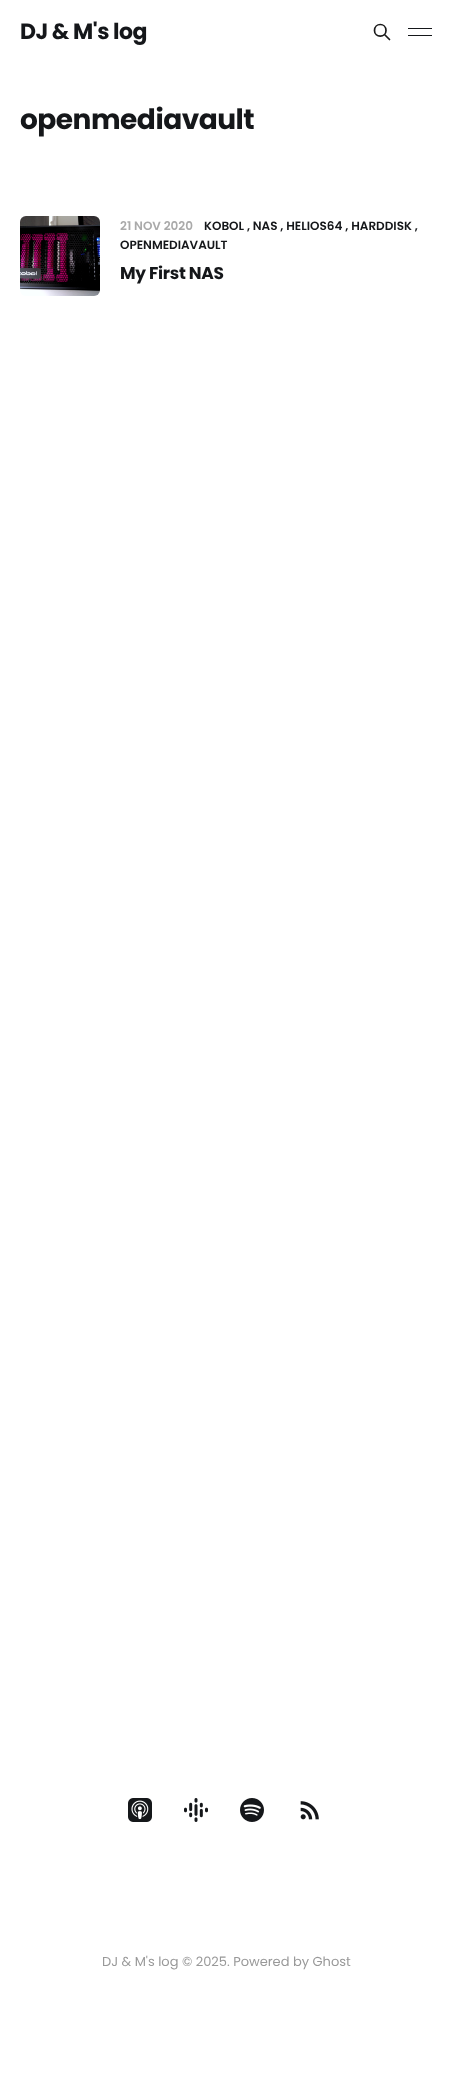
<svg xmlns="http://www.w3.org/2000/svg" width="452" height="2093">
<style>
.a{font:bold 22px Poppins;letter-spacing:-0.5px;fill:#15171a}
.b{font:bold 28px Poppins;letter-spacing:-0.5px;fill:#15171a}
.c{font:600 12px Poppins;fill:#aaa}
.d{font:600 12px Poppins;fill:#15171a}
.e{font:bold 17px Poppins;letter-spacing:-0.3px;fill:#15171a}
.f{font:13px Poppins;fill:#999}
</style>
<rect width="100%" height="100%" fill="#fff"/>
<path fill="none" stroke="#1a1a1a" stroke-width="1.7" stroke-linecap="round" stroke-linejoin="round" d="M389.5 39.5l-5-5m1.5-4c0 7.5-11.5 7.5-11.5 0c0-8 11.5-8 11.5 0z"/>
<path fill="#15171a" d="M408 28h24v1H408z"/>
<path fill="#15171a" d="M408 35h24v1H408z"/>
<image href="1.png" x="20" y="216" width="80" height="80"/>
<image href="2.png" x="128" y="1798" width="24" height="24"/>
<image href="3.png" x="184" y="1798" width="24" height="24"/>
<image href="4.png" x="240" y="1798" width="24" height="24"/>
<image href="5.png" x="300" y="1801" width="19" height="19"/>
<text class="a" x="20" y="39">DJ &amp; M's log</text>
<text class="b" x="20" y="129">openmediavault</text>
<text class="c" x="120" y="230">21 NOV 2020</text>
<text class="d" x="204" y="230">KOBOL , NAS , HELIOS64 , HARDDISK ,</text>
<text class="d" x="120" y="249">OPENMEDIAVAULT</text>
<text class="e" x="120" y="279">My First NAS</text>
<text class="f" x="102" y="1966">DJ &amp; M's log © 2025. Powered by Ghost</text>
</svg>
